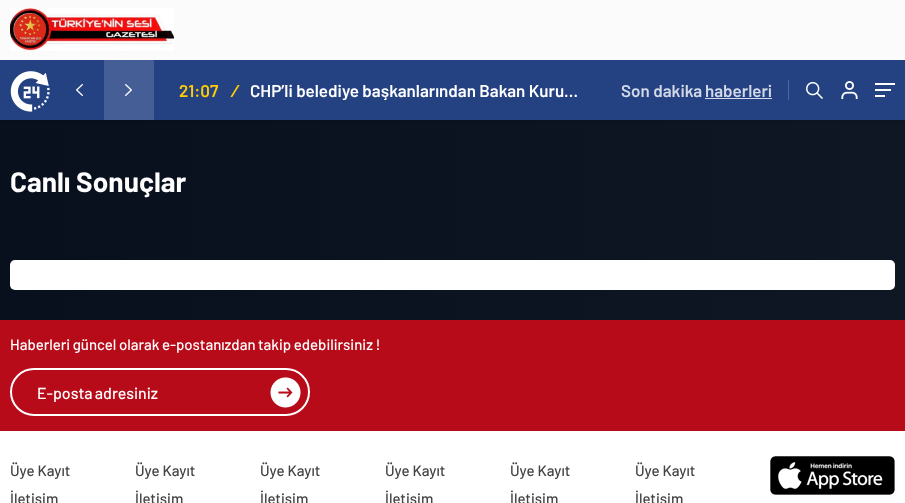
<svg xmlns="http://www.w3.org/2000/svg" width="905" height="503">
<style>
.a{font:600 17px Barlow;fill:#ffcb05}
.b{font:italic 600 17px Barlow;fill:#ffcb05}
.c{font:600 17px Barlow;fill:#fff}
.d{font:600 17px Barlow;fill:#d3d9e6}
.e{font:bold 28px Barlow;fill:#fff}
.f{font:500 15px Barlow;fill:#fff}
.g{font:500 16px Barlow;fill:#fff}
.h{font:500 15px Barlow;fill:#444343}
</style>
<defs>
<linearGradient id="g1" gradientUnits="userSpaceOnUse" x1="0" y1="257" x2="905" y2="257"><stop offset="0" stop-color="#08101d"/><stop offset="1" stop-color="#0f1724"/></linearGradient>
<clipPath id="clip1"><path d="M250 80h333v20H250z"/></clipPath>
</defs>
<rect width="100%" height="100%" fill="#fff"/>
<path fill="url(#g1)" d="M0 120h905v200H0z"/>
<path fill="#0000001a" filter="blur(1.5px)" d="M0 1h905v120H0z"/>
<path fill="#fbfbfb" d="M0 0h905v60H0z"/>
<image href="1.png" x="10" y="8" width="164" height="43"/>
<path fill="#244182" d="M0 60h905v60H0z"/>
<image href="2.png" x="10" y="71" width="40" height="41"/>
<image href="3.png" x="76" y="84" width="7" height="12"/>
<path fill="#455e95" d="M104 60h50v60H104z"/>
<image href="4.png" x="125" y="84" width="7" height="12"/>
<path fill="#d3d9e6" d="M705 98h67v1H705z"/>
<path fill="#50679b" d="M788 80h1v20H788z"/>
<image href="5.png" x="806" y="82" width="17" height="17"/>
<image href="6.png" x="841" y="81" width="17" height="18"/>
<path fill="#fff" d="M875 83h20v2H875z"/>
<path fill="#fff" d="M875 89h16v2H875z"/>
<path fill="#fff" d="M875 95h10v2H875z"/>
<rect fill="#fff" x="10" y="260" width="885" height="30" rx="5"/>
<path fill="#b70b19" d="M0 320h905v111H0z"/>
<rect fill="none" stroke="#fff" stroke-width="2" x="11" y="369" width="298" height="46" rx="23"/>
<image href="7.png" x="270" y="377" width="31" height="31"/>
<image href="8.png" x="770" y="456" width="125" height="39"/>
<text class="a" x="179" y="97">21:07</text>
<text class="b" x="230" y="97">/</text>
<g clip-path="url(#clip1)">
<text class="c" x="250" y="97">CHP’li belediye başkanlarından Bakan Kuru…</text>
</g>
<text class="d" x="621" y="97">Son dakika</text>
<text class="d" x="705" y="97">haberleri</text>
<text class="e" x="10" y="192">Canlı Sonuçlar</text>
<text class="f" x="10" y="350" word-spacing="-0.5">Haberleri güncel olarak e-postanızdan takip edebilirsiniz !</text>
<text class="g" x="37" y="399" word-spacing="-1">E-posta adresiniz</text>
<text class="h" x="10" y="476">Üye Kayıt</text>
<text class="h" x="10" y="504">İletişim</text>
<text class="h" x="135" y="476">Üye Kayıt</text>
<text class="h" x="135" y="504">İletişim</text>
<text class="h" x="260" y="476">Üye Kayıt</text>
<text class="h" x="260" y="504">İletişim</text>
<text class="h" x="385" y="476">Üye Kayıt</text>
<text class="h" x="385" y="504">İletişim</text>
<text class="h" x="510" y="476">Üye Kayıt</text>
<text class="h" x="510" y="504">İletişim</text>
<text class="h" x="635" y="476">Üye Kayıt</text>
<text class="h" x="635" y="504">İletişim</text>
</svg>
